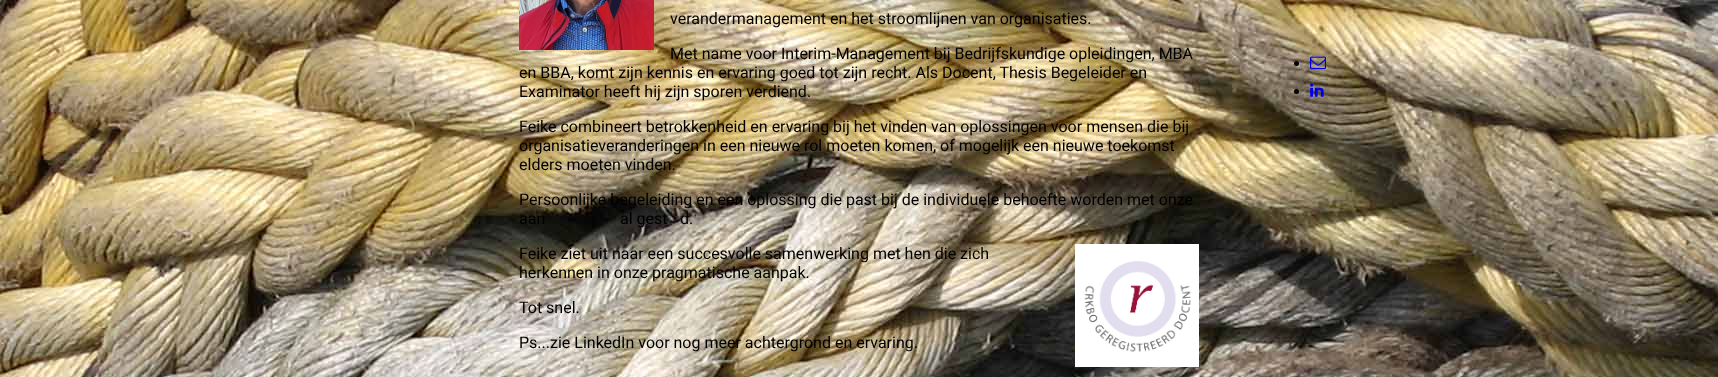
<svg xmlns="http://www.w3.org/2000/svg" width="1718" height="377">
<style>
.a{font:16px Roboto;fill:#000}
</style>
<rect width="100%" height="100%" fill="#fff"/>
<image href="1.png" x="0" y="0" width="1718" height="377"/>
<image href="2.png" x="519" y="0" width="135" height="50"/>
<image href="3.png" x="1075" y="244" width="124" height="123"/>
<circle fill="#000" cx="1296.5" cy="63.5" r="2.5"/>
<image href="4.png" x="1310" y="56" width="16" height="14"/>
<circle fill="#000" cx="1296.5" cy="91.5" r="2.5"/>
<image href="5.png" x="1310" y="83" width="14" height="14"/>
<text class="a" x="670" y="24">verandermanagement en het stroomlijnen van organisaties.</text>
<text class="a" x="670" y="59">Met name voor Interim-Management bij Bedrijfskundige opleidingen, MBA</text>
<text class="a" x="519" y="78">en BBA, komt zijn kennis en ervaring goed tot zijn recht. Als Docent, Thesis Begeleider en</text>
<text class="a" x="519" y="97">Examinator heeft hij zijn sporen verdiend.</text>
<text class="a" x="519" y="132">Feike combineert betrokkenheid en ervaring bij het vinden van oplossingen voor mensen die bij</text>
<text class="a" x="519" y="151">organisatieveranderingen in een nieuwe rol moeten komen, of mogelijk een nieuwe toekomst</text>
<text class="a" x="519" y="170">elders moeten vinden.</text>
<text class="a" x="519" y="205">Persoonlijke begeleiding en een oplossing die past bij de individuele behoefte worden met onze</text>
<text class="a" x="519" y="224">aan</text>
<text class="a" x="620" y="224">al gest</text>
<text class="a" x="680" y="224">d.</text>
<text class="a" x="519" y="259">Feike ziet uit naar een succesvolle samenwerking met hen die zich</text>
<text class="a" x="519" y="278">herkennen in onze pragmatische aanpak.</text>
<text class="a" x="519" y="313">Tot snel.</text>
<text class="a" x="519" y="348">Ps...zie LinkedIn voor nog meer achtergrond en ervaring.</text>
</svg>
